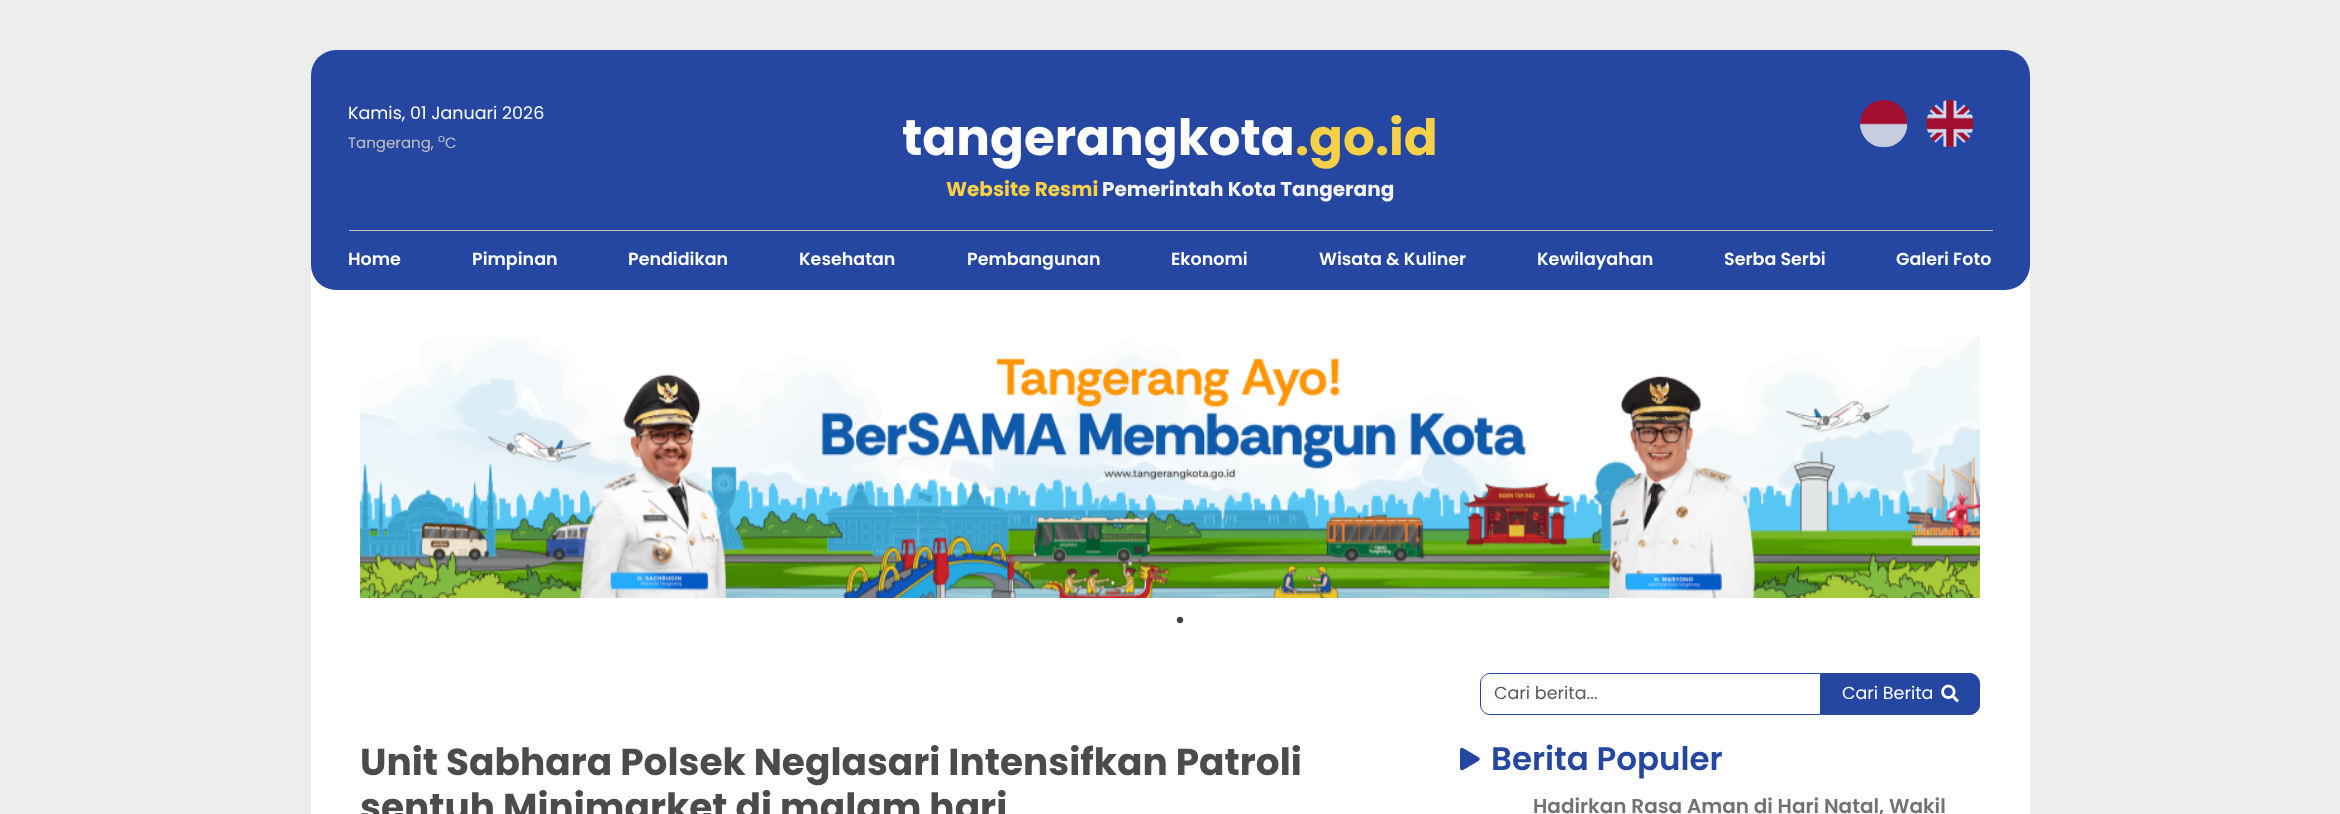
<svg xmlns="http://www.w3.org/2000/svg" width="2340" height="814">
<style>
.a{font:17.5px Poppins;fill:#fff}
.b{font:15px Poppins;fill:#c3c3c3}
.c{font:11px Poppins;fill:#c3c3c3}
.d{font:bold 50px Poppins;fill:#fff}
.e{font:bold 50px Poppins;fill:#f6d046}
.f{font:bold 20px Poppins;fill:#f6d046}
.g{font:bold 20px Poppins;fill:#f5f5f5}
.h{font:600 17.5px Poppins;fill:#fff}
.i{font:17.5px Poppins;fill:#595c5f}
.j{font:bold 37.5px Poppins;fill:#4b4b4b}
.k{font:600 32.5px Poppins;fill:#2547a2}
.l{font:600 20px Poppins;fill:#727272}
</style>
<rect width="100%" height="100%" fill="#ededed"/>
<rect fill="#fff" x="311" y="50" width="1719" height="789" rx="25"/>
<rect fill="#2547a2" x="311" y="50" width="1719" height="240" rx="25"/>
<image href="1.png" x="1860" y="100" width="48" height="48"/>
<image href="2.png" x="1926" y="100" width="48" height="48"/>
<path fill="#c3c3c3" d="M349 230h1644v1H349z"/>
<image href="3.png" x="360" y="336" width="1620" height="262"/>
<image href="4.png" x="1176" y="616" width="8" height="8"/>
<path fill="none" stroke="#2547a2" d="M1490 673.5h330.5v41h-330.5c-5 0-9.5-4.5-9.5-9.5v-22c0-5 4.5-9.5 9.5-9.5z"/>
<path fill="#2547a2" stroke="#2547a2" d="M1821.5 673.5h148.5c5 0 9.5 4.5 9.5 9.5v22c0 5-4.5 9.5-9.5 9.5h-148.5z"/>
<image href="5.png" x="1941" y="684" width="18" height="19"/>
<image href="6.png" x="1460" y="747" width="20" height="24"/>
<text class="a" x="348" y="119">Kamis, 01 Januari 2026</text>
<text class="b" x="348" y="148">Tangerang,</text>
<text class="c" x="438" y="142">o</text>
<text class="b" x="445" y="148">C</text>
<text class="d" x="902" y="155">tangerangkota</text>
<text class="e" x="1295" y="155">.go.id</text>
<text class="f" x="946" y="196">Website Resmi</text>
<text class="g" x="1102" y="196">Pemerintah Kota Tangerang</text>
<text class="h" x="348" y="265">Home</text>
<text class="h" x="472" y="265">Pimpinan</text>
<text class="h" x="628" y="265">Pendidikan</text>
<text class="h" x="799" y="265">Kesehatan</text>
<text class="h" x="967" y="265">Pembangunan</text>
<text class="h" x="1171" y="265">Ekonomi</text>
<text class="h" x="1319" y="265">Wisata &amp; Kuliner</text>
<text class="h" x="1537" y="265">Kewilayahan</text>
<text class="h" x="1724" y="265">Serba Serbi</text>
<text class="h" x="1896" y="265">Galeri Foto</text>
<text class="i" x="1494" y="699">Cari berita...</text>
<text class="a" x="1842" y="699">Cari Berita</text>
<text class="j" x="360" y="775">Unit Sabhara Polsek Neglasari Intensifkan Patroli</text>
<text class="j" x="360" y="820">sentuh Minimarket di malam hari</text>
<text class="k" x="1491" y="770">Berita Populer</text>
<text class="l" x="1533" y="813">Hadirkan Rasa Aman di Hari Natal, Wakil</text>
</svg>
